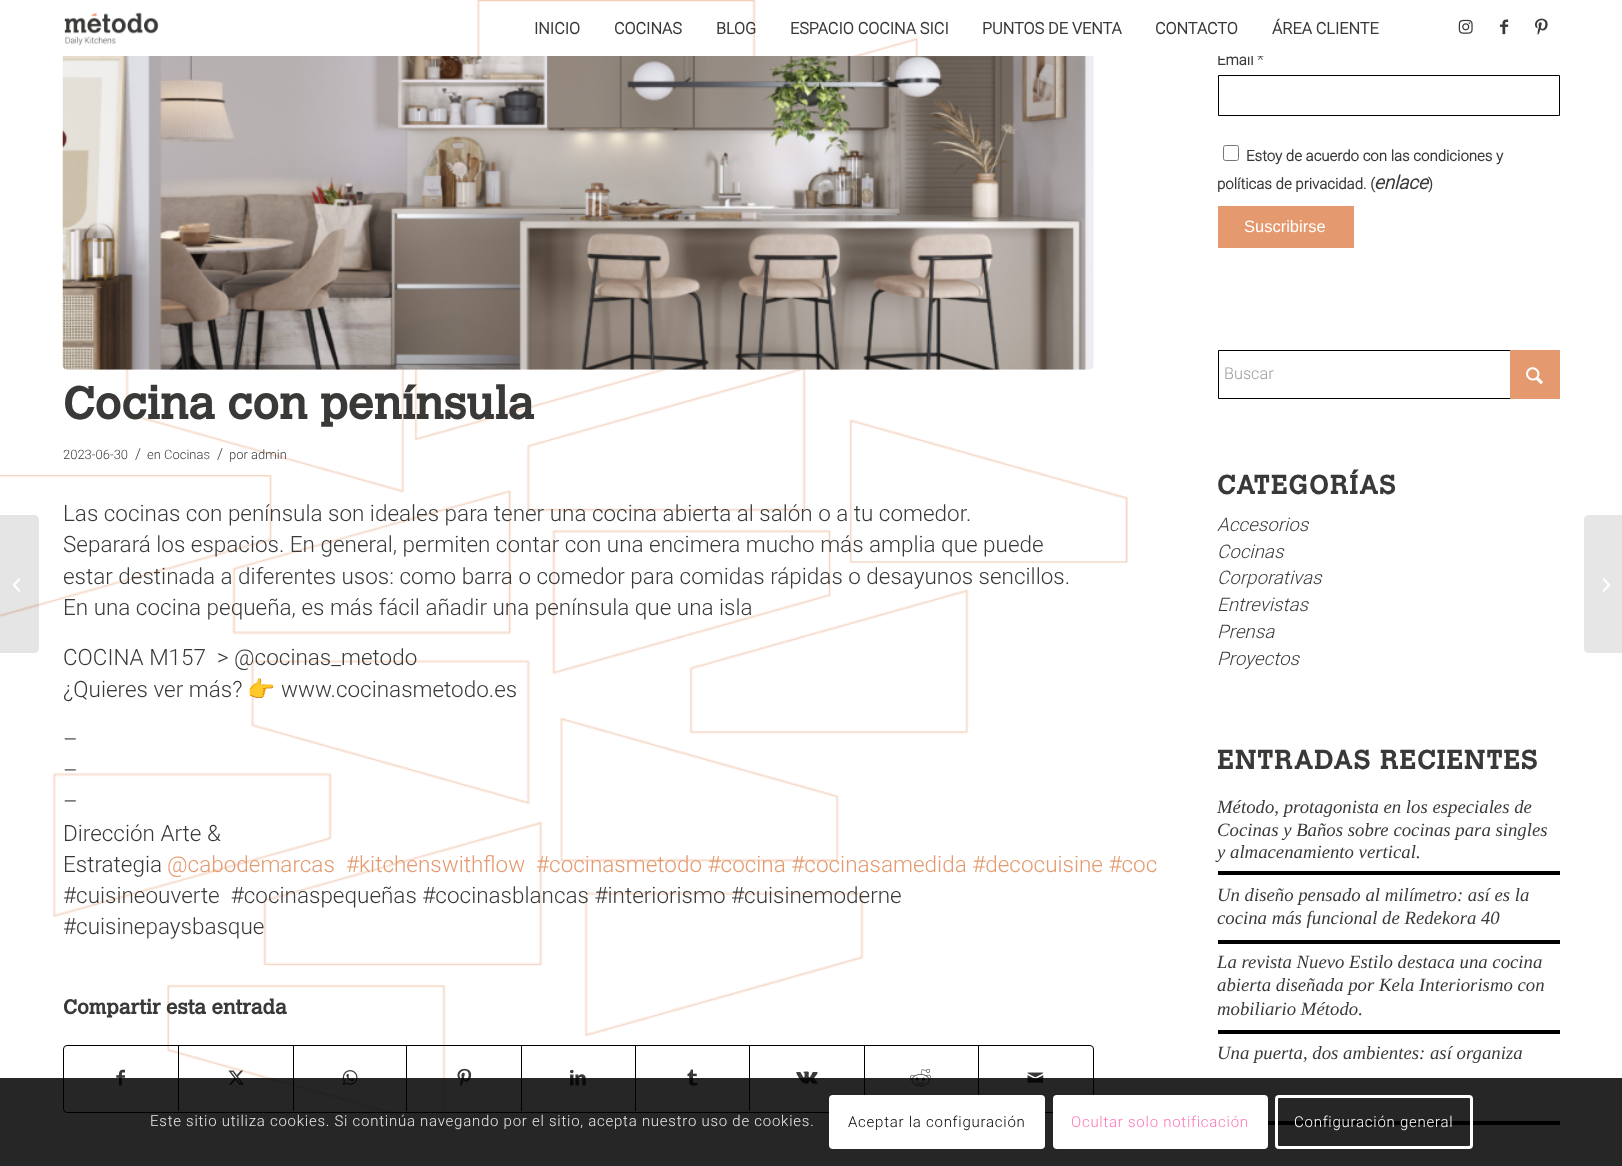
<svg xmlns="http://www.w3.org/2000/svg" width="1622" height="1166">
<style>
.a{font:bold 16.25px Roboto;fill:#393a38}
.b{font:bold 45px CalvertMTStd;fill:#393a38}
.c{font:300 13px Roboto;fill:#393a38}
.d{font:300 15px Roboto;fill:#393a38}
.e{font:300 22.5px Roboto;fill:#393a38}
.f{font:22.5px Noto Color Emoji;fill:#393a38}
.g{font:300 22.5px Roboto;fill:#e5996e}
.h{font:bold 20px CalvertMTStd;fill:#393a38}
.i{font:bold 15px Roboto;fill:#393a38}
.j{font:300 16.25px Roboto;fill:#444}
.k{font:italic bold 18.75px Roboto;fill:#393a38}
.l{font:16.5px Liberation Sans;fill:#fff}
.m{font:300 16.25px Roboto;fill:#9c9d9c}
.n{font:bold 26.25px CalvertMTStd;letter-spacing:1.25px;fill:#393a38}
.o{font:italic 300 18.75px Roboto;fill:#393a38}
.p{font:italic 18.75px Liberation Serif;fill:#393a38}
.q{font:300 15px Roboto;letter-spacing:0.75px;fill:#e9e9e9}
.r{font:300 15px Roboto;letter-spacing:0.75px;fill:#000}
.s{font:300 15px Roboto;letter-spacing:0.75px;fill:#ff75b5}
.t{font:300 15px Roboto;letter-spacing:0.75px;fill:#fff}
</style>
<rect width="100%" height="100%" fill="#fff"/>
<image href="1.png" x="476" y="0" width="442" height="56"/>
<image href="2.png" x="64" y="12" width="95" height="34"/>
<image href="3.png" x="1458" y="19" width="15" height="15"/>
<image href="4.png" x="1500" y="19" width="9" height="16"/>
<image href="5.png" x="1535" y="18" width="13" height="17"/>
<image href="7.png" x="0" y="369" width="1128" height="760"/>
<path fill="#0000001a" d="M0 515h34c3 0 5 2 5 5v128c0 3-2 5-5 5h-34z"/>
<image href="6.png" x="13" y="578" width="7" height="14"/>
<image href="8.png" x="62" y="56" width="1032" height="314"/>
<rect fill="none" stroke="#000" x="63.5" y="1045.5" width="1030" height="67" rx="3.5"/>
<image href="9.png" x="116" y="1069" width="9" height="17"/>
<path fill="#000" d="M178 1046h1v65H178z"/>
<image href="10.png" x="228" y="1070" width="16" height="15"/>
<path fill="#000" d="M293 1046h1v65H293z"/>
<image href="11.png" x="342" y="1070" width="16" height="16"/>
<path fill="#000" d="M406 1046h1v65H406z"/>
<image href="12.png" x="457" y="1068" width="15" height="19"/>
<path fill="#000" d="M521 1046h1v65H521z"/>
<image href="13.png" x="570" y="1069" width="16" height="17"/>
<path fill="#000" d="M635 1046h1v65H635z"/>
<image href="14.png" x="687" y="1069" width="11" height="17"/>
<path fill="#000" d="M749 1046h1v65H749z"/>
<image href="15.png" x="796" y="1071" width="22" height="13"/>
<path fill="#000" d="M864 1046h1v49H864z"/>
<image href="16.png" x="910" y="1068" width="22" height="19"/>
<path fill="#000" d="M978 1046h1v49H978z"/>
<image href="17.png" x="1027" y="1072" width="17" height="11"/>
<path fill="none" stroke="#000" d="M1218.5 75.5h341v40H1218.5z"/>
<rect fill="none" stroke="#767676" x="1223.5" y="145.5" width="15" height="15" rx="2"/>
<path fill="#e5996e" d="M1218 206h136v42H1218z"/>
<path fill="none" stroke="#000" d="M1218.5 350.5h341v48H1218.5z"/>
<path fill="#e5996e" d="M1510 350h50v49H1510z"/>
<image href="18.png" x="1526" y="367" width="17" height="17"/>
<path fill="#000" d="M1218 871h342v4H1218z"/>
<path fill="#000" d="M1218 940h342v4H1218z"/>
<path fill="#000" d="M1218 1030h342v4H1218z"/>
<path fill="#000" d="M1268 1121h292v4H1268z"/>
<path fill="#e6e6e6" d="M1589 515h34v138h-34c-3 0-5-2-5-5v-128c0-3 2-5 5-5z"/>
<image href="19.png" x="1603" y="578" width="7" height="14"/>
<path fill="#000000d9" d="M0 1078h1622v88H0z"/>
<rect fill="#fff" x="829" y="1095" width="216" height="54" rx="4"/>
<rect fill="#fff" stroke="#fff" stroke-width="3" x="1054.5" y="1096.5" width="212" height="51" rx="2.5"/>
<rect fill="none" stroke="#fff" stroke-width="3" x="1276.5" y="1096.5" width="195" height="51" rx="2.5"/>
<text class="a" x="534" y="34">INICIO</text>
<text class="a" x="614" y="34">COCINAS</text>
<text class="a" x="716" y="34">BLOG</text>
<text class="a" x="790" y="34">ESPACIO COCINA SICI</text>
<text class="a" x="982" y="34">PUNTOS DE VENTA</text>
<text class="a" x="1155" y="34">CONTACTO</text>
<text class="a" x="1272" y="34">ÁREA CLIENTE</text>
<text class="b" x="63" y="419">Cocina con península</text>
<text class="c" x="63" y="459">2023-06-30</text>
<text class="d" x="135" y="459">/</text>
<text class="c" x="147" y="459">en Cocinas</text>
<text class="d" x="217" y="459">/</text>
<text class="c" x="229" y="459">por admin</text>
<text class="e" x="63" y="521">Las cocinas con península son ideales para tener una cocina abierta al salón o a tu comedor.</text>
<text class="e" x="63" y="552">Separará los espacios. En general, permiten contar con una encimera mucho más amplia que puede</text>
<text class="e" x="63" y="584">estar destinada a diferentes usos: como barra o comedor para comidas rápidas o desayunos sencillos.</text>
<text class="e" x="63" y="615">En una cocina pequeña, es más fácil añadir una península que una isla</text>
<text class="e" xml:space="preserve" x="63" y="665">COCINA M157  &gt; @cocinas_metodo</text>
<text class="e" x="63" y="697">¿Quieres ver más?</text>
<text class="f" x="247" y="697">👉</text>
<text class="e" x="281" y="697">www.cocinasmetodo.es</text>
<text class="e" x="63" y="747">–</text>
<text class="e" x="63" y="778">–</text>
<text class="e" x="63" y="809">–</text>
<text class="e" x="63" y="841">Dirección Arte &amp;</text>
<text class="e" x="63" y="872">Estrategia</text>
<text class="g" x="167" y="872">@cabodemarcas</text>
<text class="g" x="346" y="872">#kitchenswithflow</text>
<text class="g" x="536" y="872">#cocinasmetodo #cocina #cocinasamedida #decocuisine #coc</text>
<text class="e" xml:space="preserve" x="63" y="903">#cuisineouverte  #cocinaspequeñas #cocinasblancas #interiorismo #cuisinemoderne</text>
<text class="e" x="63" y="934">#cuisinepaysbasque</text>
<text class="h" x="63" y="1014">Compartir esta entrada</text>
<text class="i" x="1217" y="65">Email</text>
<text class="j" x="1257" y="65">*</text>
<path fill="#fff" d="M1218 53h46v3H1218z"/>
<text class="i" x="1246" y="161">Estoy de acuerdo con las condiciones y</text>
<text class="i" x="1217" y="189">políticas de privacidad. (</text>
<text class="k" x="1374" y="189">enlace</text>
<text class="i" x="1428" y="189">)</text>
<text class="l" x="1244" y="232">Suscribirse</text>
<text class="m" x="1224" y="379">Buscar</text>
<text class="n" x="1217" y="494">CATEGORÍAS</text>
<text class="o" x="1217" y="531">Accesorios</text>
<text class="o" x="1217" y="558">Cocinas</text>
<text class="o" x="1217" y="584">Corporativas</text>
<text class="o" x="1217" y="611">Entrevistas</text>
<text class="o" x="1217" y="638">Prensa</text>
<text class="o" x="1217" y="665">Proyectos</text>
<text class="n" x="1217" y="769">ENTRADAS RECIENTES</text>
<text class="p" x="1217" y="813">Método, protagonista en los especiales de</text>
<text class="p" x="1217" y="836">Cocinas y Baños sobre cocinas para singles</text>
<text class="p" x="1217" y="858">y almacenamiento vertical.</text>
<text class="p" x="1217" y="901">Un diseño pensado al milímetro: así es la</text>
<text class="p" x="1217" y="924">cocina más funcional de Redekora 40</text>
<text class="p" x="1217" y="968">La revista Nuevo Estilo destaca una cocina</text>
<text class="p" x="1217" y="991">abierta diseñada por Kela Interiorismo con</text>
<text class="p" x="1217" y="1015">mobiliario Método.</text>
<text class="p" x="1217" y="1059">Una puerta, dos ambientes: así organiza</text>
<text class="q" x="150" y="1126">Este sitio utiliza cookies. Si continúa navegando por el sitio, acepta nuestro uso de cookies.</text>
<text class="r" x="848" y="1127">Aceptar la configuración</text>
<text class="s" x="1071" y="1127">Ocultar solo notificación</text>
<text class="t" x="1294" y="1127">Configuración general</text>
</svg>
